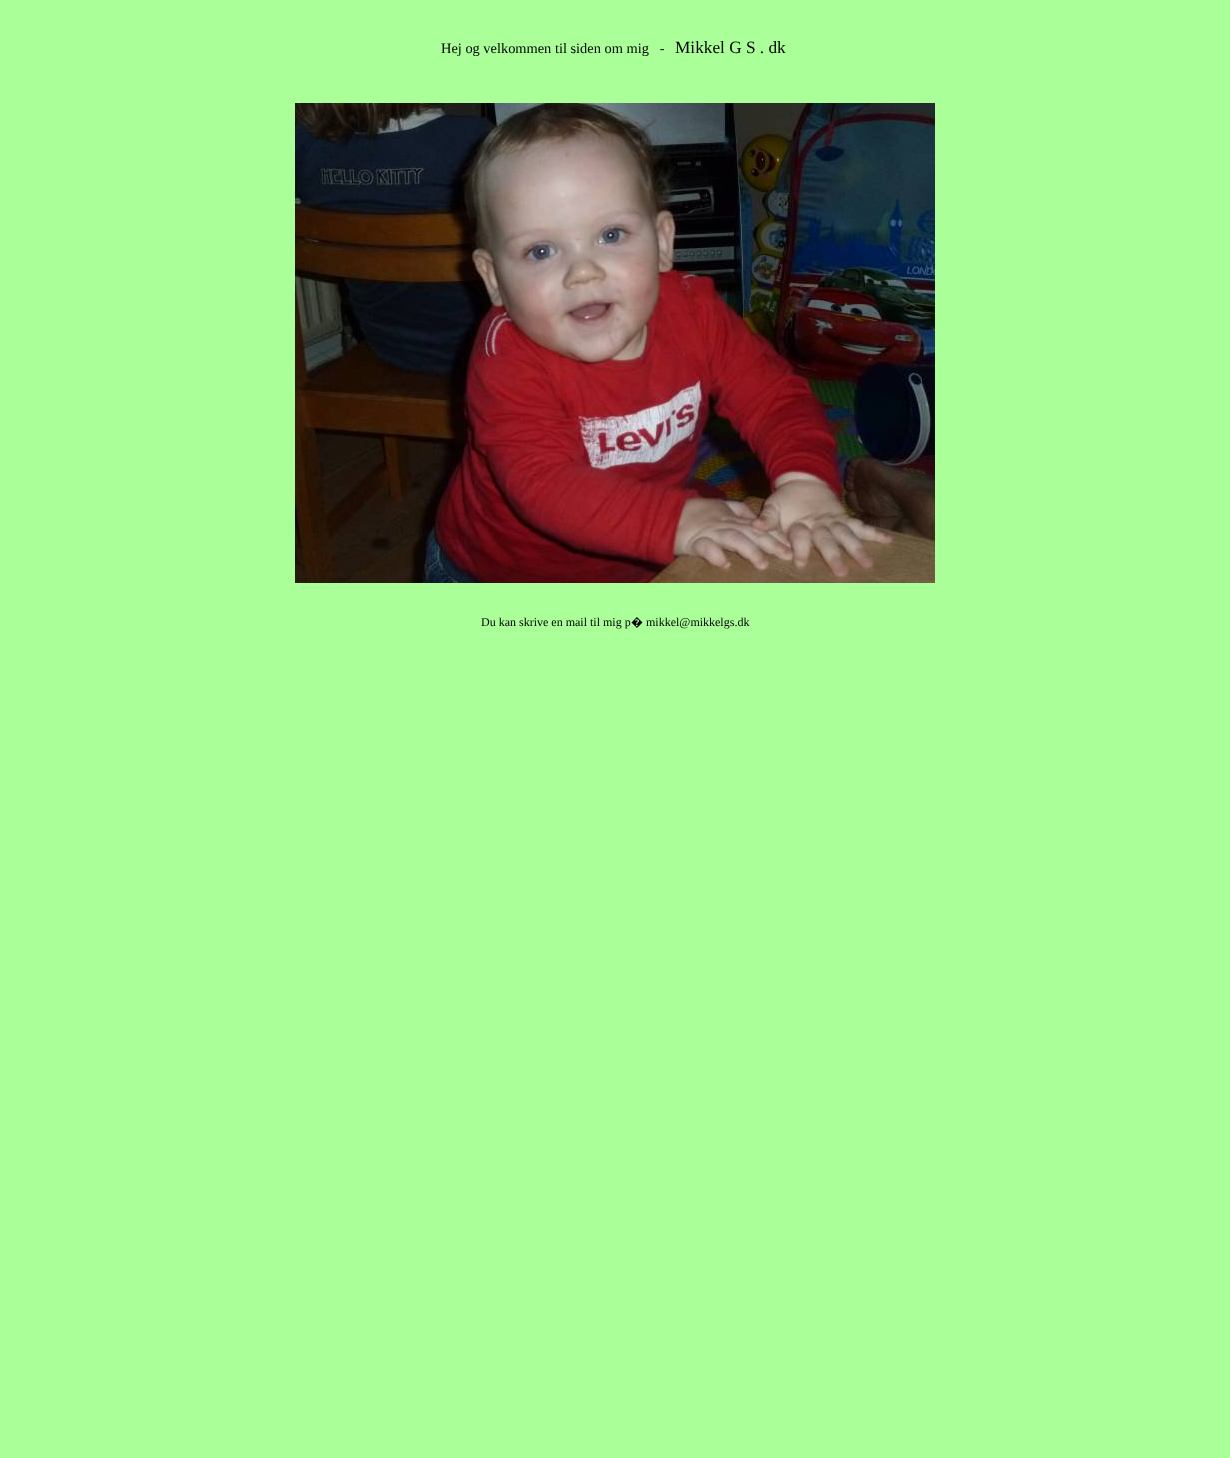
<svg xmlns="http://www.w3.org/2000/svg" width="1230" height="1458">
<style>
.a{font:14.4px Liberation Serif;fill:#000}
.b{font:17.25px Liberation Serif;fill:#000}
.c{font:12px Liberation Serif;fill:#000}
.d{font:12px Noto Sans;fill:#000}
</style>
<rect width="100%" height="100%" fill="#af9"/>
<image href="1.png" x="295" y="103" width="640" height="480"/>
<text class="a" xml:space="preserve" x="441" y="53">Hej og velkommen til siden om mig   -</text>
<text class="b" x="675" y="53">Mikkel G S . dk</text>
<text class="c" x="481" y="626">Du kan skrive en mail til mig p</text>
<text class="d" x="631" y="626">�</text>
<text class="c" x="646" y="626">mikkel@mikkelgs.dk</text>
</svg>
